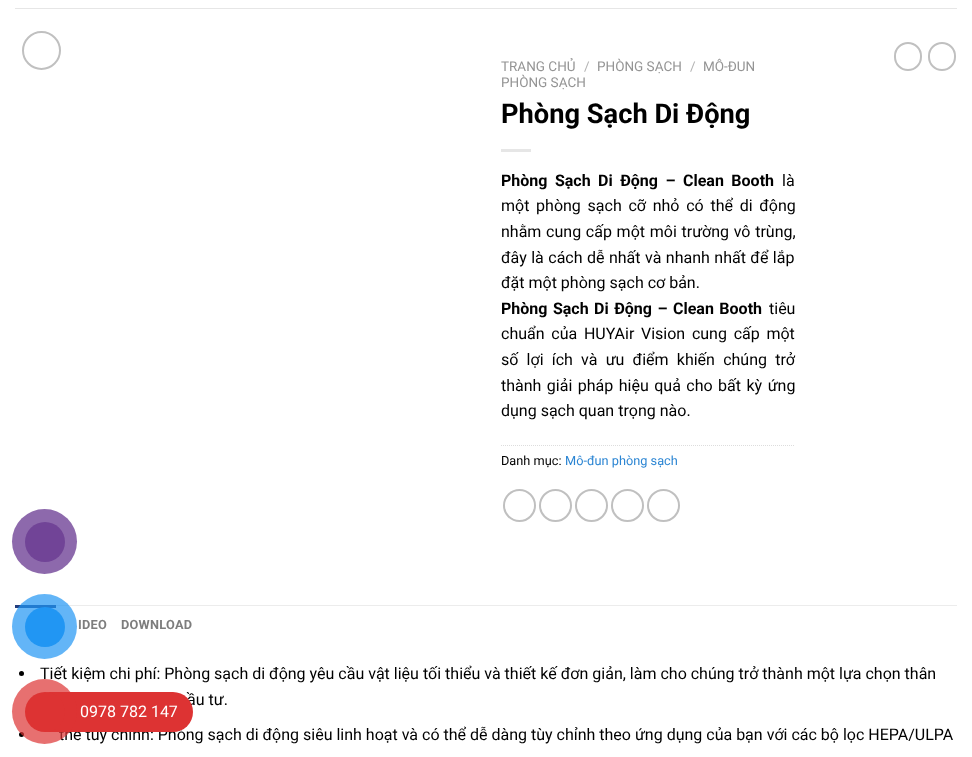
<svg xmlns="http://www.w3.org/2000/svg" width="972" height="757">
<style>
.a{font:13.5px Roboto;fill:#949494}
.b{font:13.5px Roboto;fill:#b2b2b2}
.c{font:bold 27.25px Roboto;fill:#000}
.d{font:bold 16px Roboto;fill:#000}
.e{font:16px Roboto;fill:#000}
.f{font:12.75px Roboto;fill:#000}
.g{font:12.75px Roboto;fill:#2b85d3}
.h{font:bold 12.75px Roboto;letter-spacing:0.25px;fill:#7d7d7d}
.i{font:16px Roboto;fill:#fff}
</style>
<rect width="100%" height="100%" fill="#fff"/>
<path fill="#e6e6e6" d="M15 8h942v1H15z"/>
<circle fill="none" stroke="#c0c0c0" stroke-width="2" cx="41.5" cy="50.5" r="18.5"/>
<path fill="#e6e6e6" d="M501 149h30v3H501z"/>
<path fill="none" stroke="#ddd" stroke-dasharray="1 1" d="M501 445.5h294"/>
<circle fill="none" stroke="#c0c0c0" stroke-width="2" cx="519.5" cy="505.5" r="15.5"/>
<circle fill="none" stroke="#c0c0c0" stroke-width="2" cx="555.5" cy="505.5" r="15.5"/>
<circle fill="none" stroke="#c0c0c0" stroke-width="2" cx="591.5" cy="505.5" r="15.5"/>
<circle fill="none" stroke="#c0c0c0" stroke-width="2" cx="627.5" cy="505.5" r="15.5"/>
<circle fill="none" stroke="#c0c0c0" stroke-width="2" cx="663.5" cy="505.5" r="15.5"/>
<rect fill="none" stroke="#c0c0c0" stroke-width="2" x="895" y="43" width="26" height="27" rx="13"/>
<rect fill="none" stroke="#c0c0c0" stroke-width="2" x="929" y="43" width="26" height="27" rx="13"/>
<path fill="#ececec" d="M56 605h901v1H56z"/>
<path fill="#243e7d" d="M15 605h41v3H15z"/>
<circle fill="#000" cx="21.5" cy="673.5" r="2.5"/>
<circle fill="#000" cx="21.5" cy="734.5" r="2.5"/>
<circle fill="#8d69ac" cx="44.5" cy="541.5" r="32.5"/>
<circle fill="#714497" cx="45" cy="542" r="20"/>
<circle fill="#2196f3b3" cx="44.5" cy="626.5" r="32.5"/>
<circle fill="#2196f3" cx="45" cy="627" r="20"/>
<text class="a" x="501" y="71">TRANG CHỦ</text>
<text class="b" x="584" y="71">/</text>
<text class="a" x="597" y="71">PHÒNG SẠCH</text>
<text class="b" x="690" y="71">/</text>
<text class="a" x="703" y="71">MÔ-ĐUN</text>
<text class="a" x="501" y="87">PHÒNG SẠCH</text>
<text class="c" x="501" y="123">Phòng Sạch Di Động</text>
<text class="d" x="501" y="186" word-spacing="3.5">Phòng Sạch Di Động – Clean Booth</text>
<text class="e" x="782" y="186">là</text>
<text class="e" x="501" y="211" word-spacing="2.75">một phòng sạch cỡ nhỏ có thể di động</text>
<text class="e" x="501" y="237" word-spacing="0.75">nhằm cung cấp một môi trường vô trùng,</text>
<text class="e" x="501" y="263" word-spacing="0.5">đây là cách dễ nhất và nhanh nhất để lắp</text>
<text class="e" x="501" y="288">đặt một phòng sạch cơ bản.</text>
<text class="d" x="501" y="314" word-spacing="1.5">Phòng Sạch Di Động – Clean Booth</text>
<text class="e" x="769" y="314">tiêu</text>
<text class="e" x="501" y="339" word-spacing="2.75">chuẩn của HUYAir Vision cung cấp một</text>
<text class="e" x="501" y="365" word-spacing="4.25">số lợi ích và ưu điểm khiến chúng trở</text>
<text class="e" x="501" y="391" word-spacing="1.5">thành giải pháp hiệu quả cho bất kỳ ứng</text>
<text class="e" x="501" y="416">dụng sạch quan trọng nào.</text>
<text class="f" x="501" y="465">Danh mục:</text>
<text class="g" x="565" y="465">Mô-đun phòng sạch</text>
<text class="h" x="78" y="629">IDEO</text>
<text class="h" x="121" y="629">DOWNLOAD</text>
<text class="e" x="40" y="679">Tiết kiệm chi phí: Phòng sạch di động yêu cầu vật liệu tối thiểu và thiết kế đơn giản, làm cho chúng trở thành một lựa chọn thân</text>
<text class="e" x="187" y="705">ầu tư.</text>
<text class="e" x="59" y="740">thể tùy chỉnh: Phòng sạch di động siêu linh hoạt và có thể dễ dàng tùy chỉnh theo ứng dụng của bạn với các bộ lọc HEPA/ULPA</text>
<rect fill="#d33" x="30" y="692" width="163" height="40" rx="20"/>
<circle fill="#dd3333b3" cx="44.5" cy="711.5" r="32.5"/>
<circle fill="#d33" cx="45" cy="712" r="20"/>
<text class="i" x="80" y="717">0978 782 147</text>
</svg>
